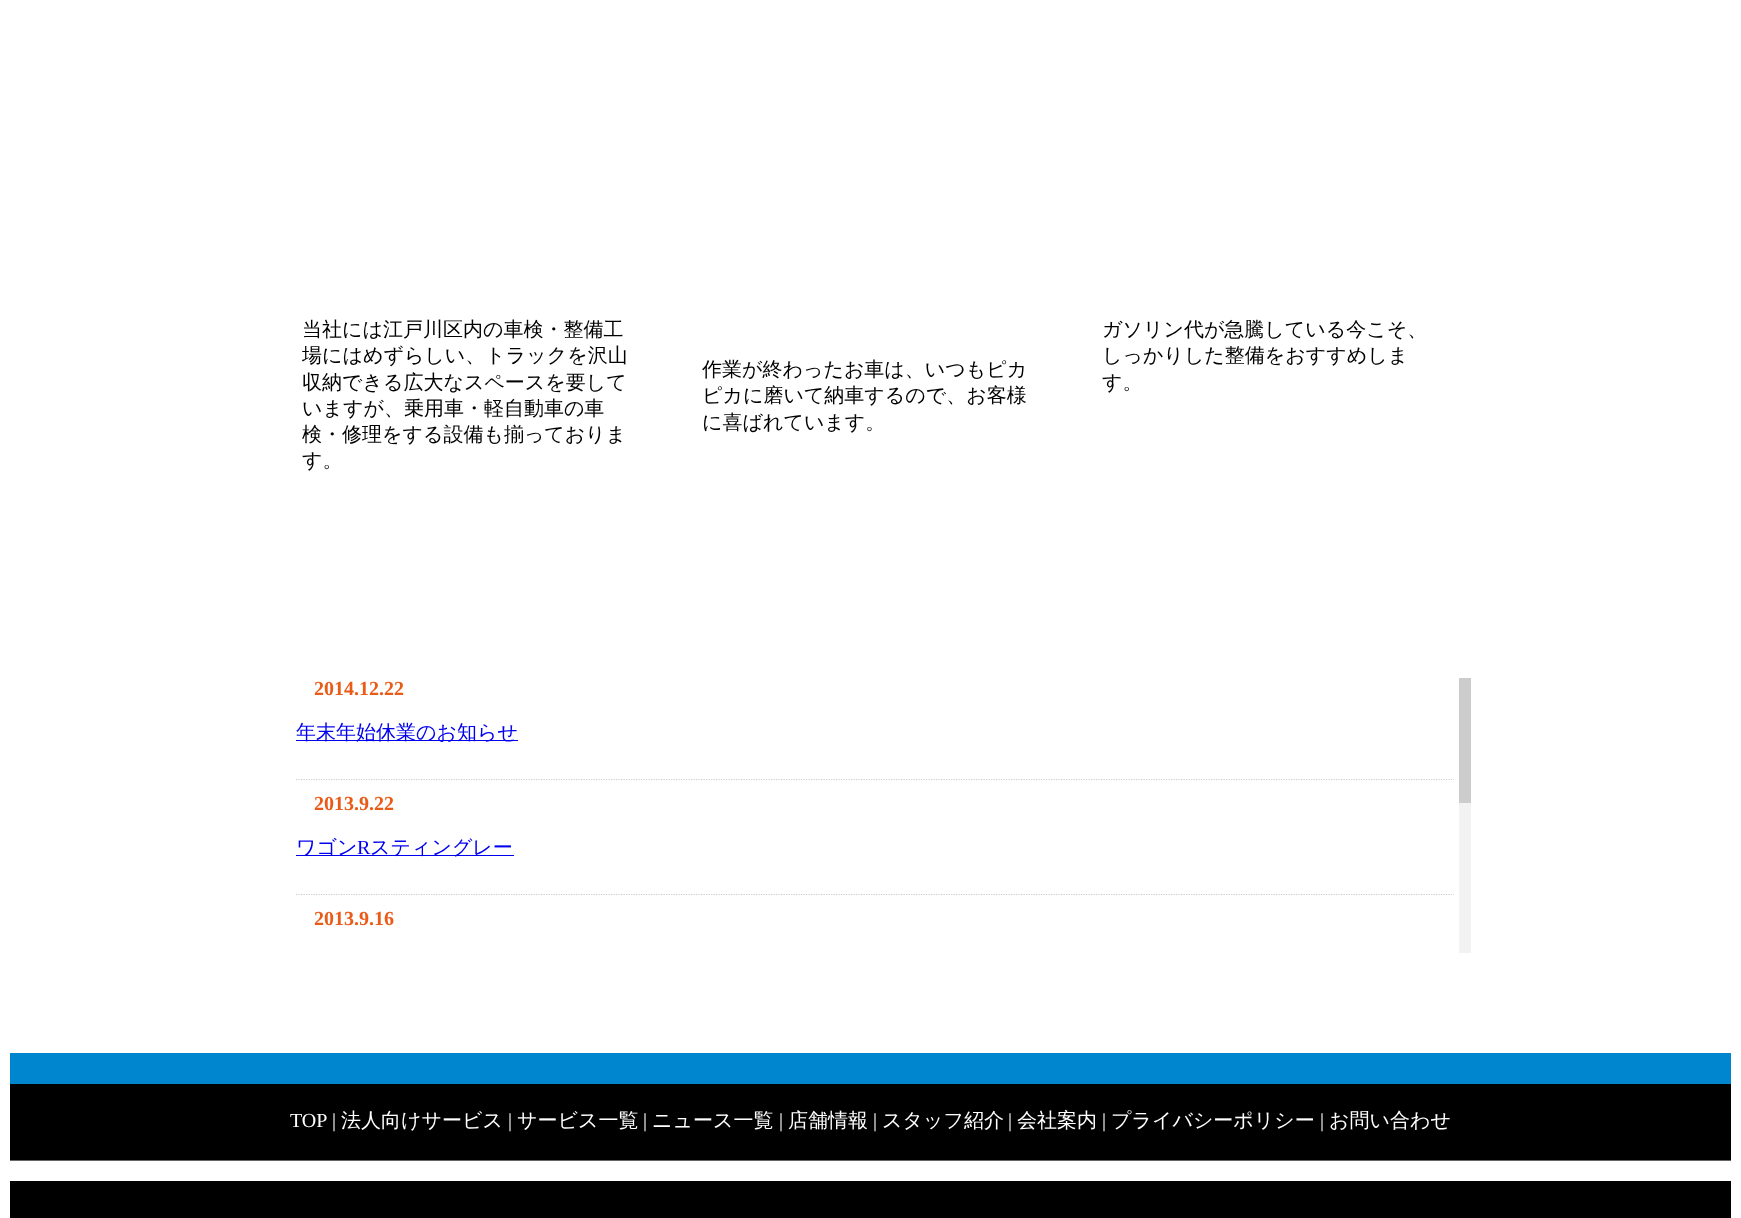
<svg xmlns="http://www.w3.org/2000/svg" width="1741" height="1218">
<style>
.a{font:500 20px WenQuanYi Zen Hei;fill:#000}
.b{font:bold 20px Liberation Serif;fill:#ea5b17}
.c{font:500 20px WenQuanYi Zen Hei;fill:#00e}
.d{font:20px Liberation Serif;fill:#00e}
.e{font:20px Liberation Serif;fill:#fff}
.f{font:500 20px WenQuanYi Zen Hei;fill:#fff}
</style>
<rect width="100%" height="100%" fill="#fff"/>
<path fill="none" stroke="#ccc" stroke-width="1.2" stroke-dasharray="1.25 1.25" d="M296 779.5h1158"/>
<path fill="#00e" d="M296 740h222v1H296z"/>
<path fill="none" stroke="#ccc" stroke-width="1.2" stroke-dasharray="1.25 1.25" d="M296 894.5h1158"/>
<path fill="#00e" d="M296 855h218v1H296z"/>
<path fill="#f2f2f2" d="M1459 803h12v150H1459z"/>
<path fill="#ccc" d="M1459 678h12v125H1459z"/>
<path fill="#0086ce" d="M10 1053h1721v31H10z"/>
<path fill="#000" d="M10 1084h1721v76H10z"/>
<path fill="#666" d="M10 1160h1721v1H10z"/>
<path fill="#000" d="M10 1181h1721v37H10z"/>
<text class="a" x="302" y="336">当社には江戸川区内の車検・整備工</text>
<text class="a" x="302" y="362">場にはめずらしい、トラックを沢山</text>
<text class="a" x="302" y="389">収納できる広大なスペースを要して</text>
<text class="a" x="302" y="415">いますが、乗用車・軽自動車の車</text>
<text class="a" x="302" y="441">検・修理をする設備も揃っておりま</text>
<text class="a" x="302" y="467">す。</text>
<text class="a" x="702" y="376">作業が終わったお車は、いつもピカ</text>
<text class="a" x="702" y="402">ピカに磨いて納車するので、お客様</text>
<text class="a" x="702" y="429">に喜ばれています。</text>
<text class="a" x="1102" y="336">ガソリン代が急騰している今こそ、</text>
<text class="a" x="1102" y="362">しっかりした整備をおすすめしま</text>
<text class="a" x="1102" y="389">す。</text>
<text class="b" x="314" y="695">2014.12.22</text>
<text class="c" x="296" y="739">年末年始休業のお知らせ</text>
<text class="b" x="314" y="810">2013.9.22</text>
<text class="c" x="296" y="854">ワゴン</text>
<text class="d" x="357" y="854">R</text>
<text class="c" x="370" y="854">スティングレー</text>
<text class="b" x="314" y="925">2013.9.16</text>
<text class="e" x="290" y="1127">TOP</text>
<text class="e" x="332" y="1127">|</text>
<text class="f" x="341" y="1127">法人向けサービス</text>
<text class="e" x="508" y="1127">|</text>
<text class="f" x="517" y="1127">サービス一覧</text>
<text class="e" x="643" y="1127">|</text>
<text class="f" x="652" y="1127">ニュース一覧</text>
<text class="e" x="779" y="1127">|</text>
<text class="f" x="788" y="1127">店舗情報</text>
<text class="e" x="873" y="1127">|</text>
<text class="f" x="882" y="1127">スタッフ紹介</text>
<text class="e" x="1008" y="1127">|</text>
<text class="f" x="1017" y="1127">会社案内</text>
<text class="e" x="1102" y="1127">|</text>
<text class="f" x="1111" y="1127">プライバシーポリシー</text>
<text class="e" x="1320" y="1127">|</text>
<text class="f" x="1329" y="1127">お問い合わせ</text>
</svg>
